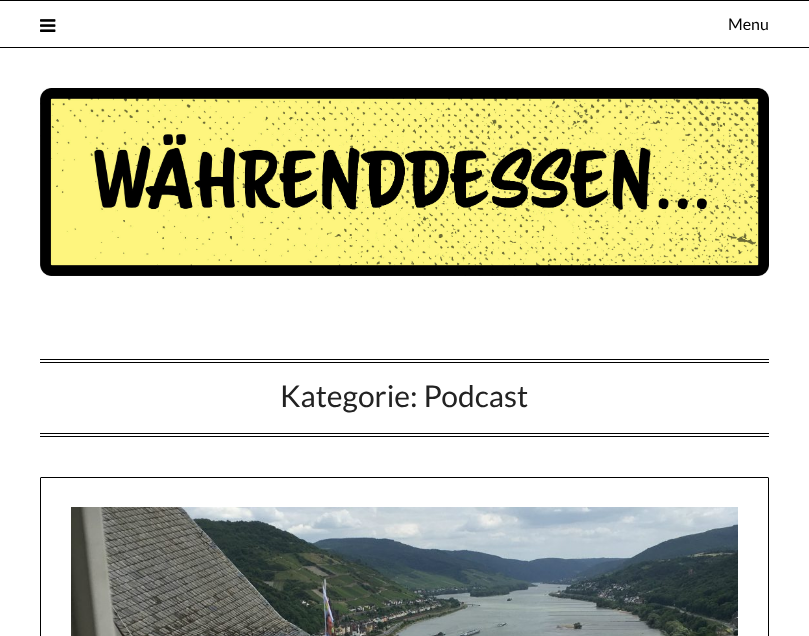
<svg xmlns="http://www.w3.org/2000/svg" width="809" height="636">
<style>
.a{font:16px Lato;fill:#000}
.b{font:30px Lato;fill:#222}
</style>
<rect width="100%" height="100%" fill="#fff"/>
<path fill="#000" d="M0 0h809v1H0z"/>
<path fill="#000" d="M0 47h809v1H0z"/>
<image href="1.png" x="40" y="19" width="16" height="13"/>
<image href="2.png" x="40" y="88" width="729" height="188"/>
<path fill="#000" d="M40 359h729v1H40z"/>
<path fill="#000" d="M40 362h729v1H40z"/>
<path fill="#000" d="M40 433h729v1H40z"/>
<path fill="#000" d="M40 436h729v1H40z"/>
<rect fill="none" stroke="#000" x="40.5" y="477.5" width="728" height="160" rx="0.5"/>
<image href="3.png" x="71" y="507" width="667" height="129"/>
<text class="a" x="728" y="30">Menu</text>
<text class="b" x="280" y="407">Kategorie: Podcast</text>
</svg>
